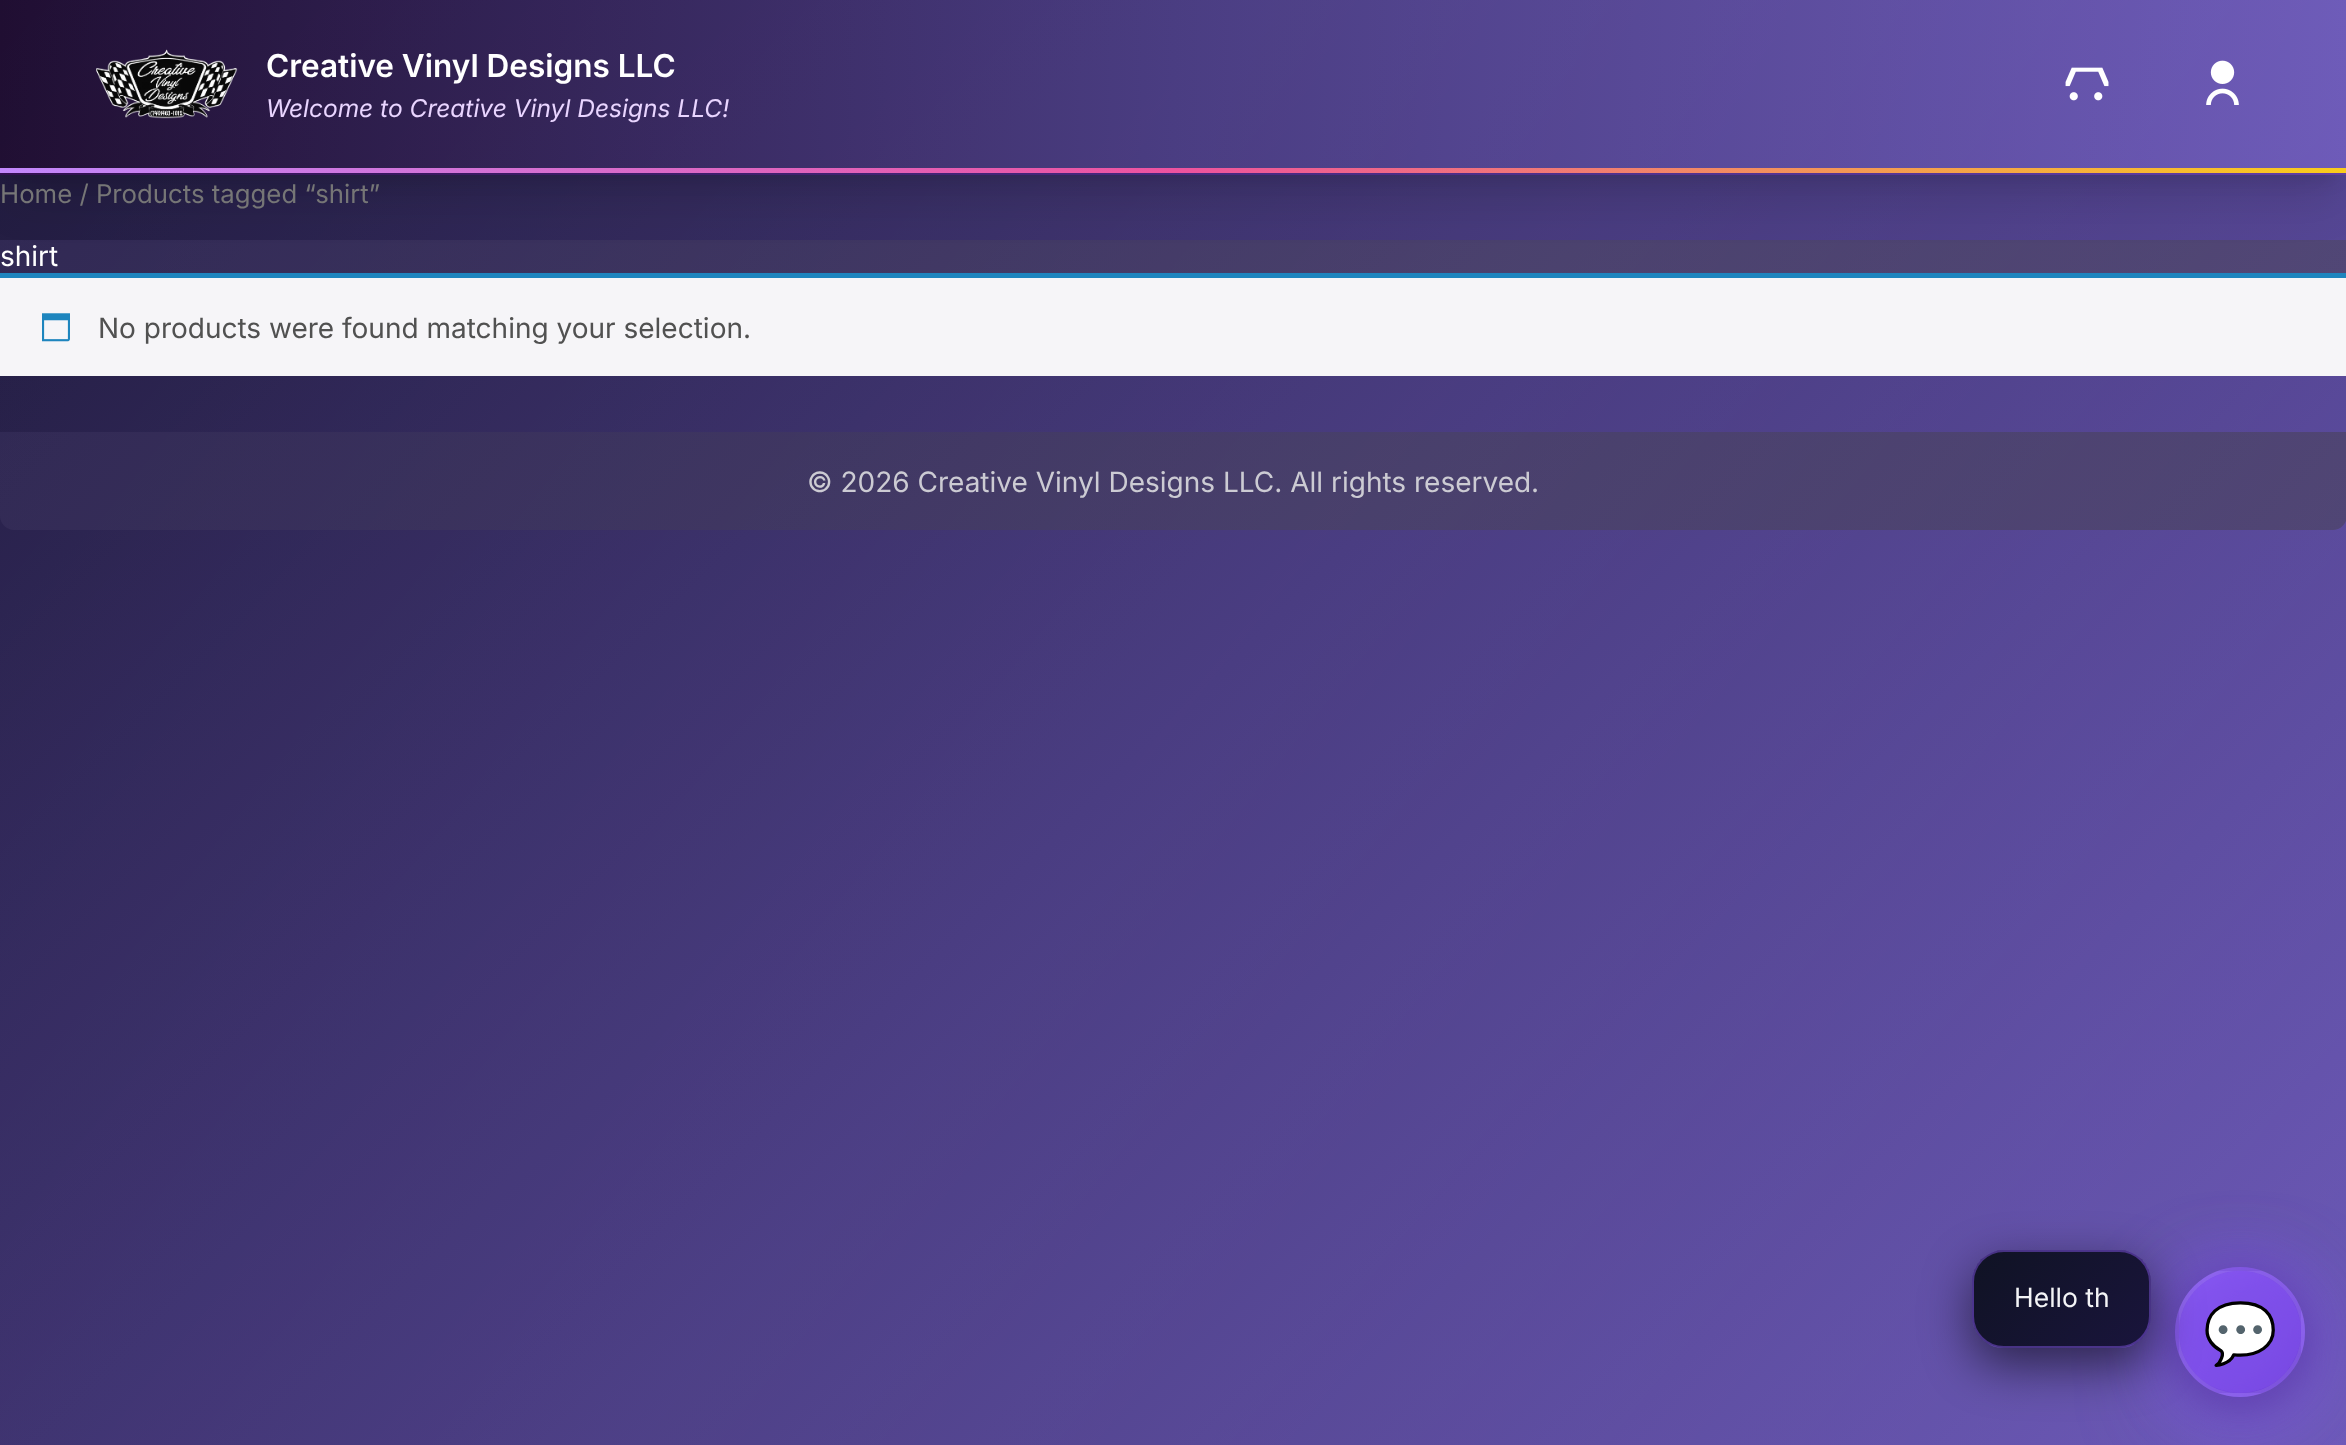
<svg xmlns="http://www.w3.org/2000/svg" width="2346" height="1445">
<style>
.a{font:600 31.5px Inter;fill:#fff}
.b{font:italic 24.5px Inter;fill:#e9d5ff}
.c{font:25.75px Inter;fill:#767676}
.d{font:28px Inter;fill:#fff}
.e{font:28px Inter;fill:#515151}
.f{font:28px Inter;fill:#cccbd3}
.g{font:26.5px Inter;fill:#f3f4f6}
.h{font:60px Noto Color Emoji;fill:#fff}
</style>
<defs>
<linearGradient id="g1" gradientUnits="userSpaceOnUse" x1="225" y1="-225" x2="2121" y2="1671"><stop offset="0" stop-color="#1a1536"/><stop offset="0.5" stop-color="#3f317a"/><stop offset="1" stop-color="#6a57b7"/></linearGradient>
<linearGradient id="g2" gradientUnits="userSpaceOnUse" x1="578" y1="-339" x2="1768" y2="851"><stop offset="0" stop-color="#2c2450"/><stop offset="1" stop-color="#4a3f70"/></linearGradient>
<linearGradient id="g3" gradientUnits="userSpaceOnUse" x1="562" y1="-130" x2="1785" y2="1092"><stop offset="0" stop-color="#2c2450"/><stop offset="1" stop-color="#4a3f70"/></linearGradient>
<linearGradient id="g4" gradientUnits="userSpaceOnUse" x1="-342" y1="-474" x2="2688" y2="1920"><stop offset="0" stop-color="#fff" stop-opacity="0"/><stop offset="0.5" stop-color="#fff" stop-opacity="0.06"/><stop offset="1" stop-color="#fff" stop-opacity="0"/></linearGradient>
<linearGradient id="g5" gradientUnits="userSpaceOnUse" x1="0" y1="87" x2="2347" y2="87"><stop offset="0" stop-color="#1a082d"/><stop offset="0.5" stop-color="#3f317a"/><stop offset="1" stop-color="#6a57b7"/></linearGradient>
<linearGradient id="g6" gradientUnits="userSpaceOnUse" x1="0" y1="171" x2="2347" y2="171"><stop offset="0" stop-color="#c084fc"/><stop offset="0.5" stop-color="#ec4899"/><stop offset="1" stop-color="#facc15"/></linearGradient>
<linearGradient id="g7" gradientUnits="userSpaceOnUse" x1="-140" y1="-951" x2="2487" y2="1124"><stop offset="0" stop-color="#fff" stop-opacity="0"/><stop offset="0.5" stop-color="#fff" stop-opacity="0.06"/><stop offset="1" stop-color="#fff" stop-opacity="0"/></linearGradient>
<clipPath id="clip1"><rect x="2175" y="1267" width="130" height="130" rx="65"/></clipPath>
<linearGradient id="g8" gradientUnits="userSpaceOnUse" x1="2179" y1="1148" x2="2301" y2="1271"><stop offset="0" stop-color="#8b5cf6"/><stop offset="1" stop-color="#6839d3"/></linearGradient>
<linearGradient id="g9" gradientUnits="userSpaceOnUse" x1="2056" y1="1271" x2="2179" y2="1393"><stop offset="0" stop-color="#8b5cf6"/><stop offset="1" stop-color="#6839d3"/></linearGradient>
<linearGradient id="g10" gradientUnits="userSpaceOnUse" x1="2179" y1="1271" x2="2301" y2="1393"><stop offset="0" stop-color="#8b5cf6"/><stop offset="1" stop-color="#6839d3"/></linearGradient>
<linearGradient id="g11" gradientUnits="userSpaceOnUse" x1="2179" y1="1393" x2="2301" y2="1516"><stop offset="0" stop-color="#8b5cf6"/><stop offset="1" stop-color="#6839d3"/></linearGradient>
<linearGradient id="g12" gradientUnits="userSpaceOnUse" x1="2301" y1="1271" x2="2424" y2="1393"><stop offset="0" stop-color="#8b5cf6"/><stop offset="1" stop-color="#6839d3"/></linearGradient>
<clipPath id="clip2"><path d="M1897 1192h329v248h-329zm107 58h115c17.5 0 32 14.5 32 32v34c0 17.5-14.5 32-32 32h-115c-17.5 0-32-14.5-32-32v-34c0-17.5 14.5-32 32-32z" clip-rule="evenodd"/></clipPath>
<clipPath id="clip3"><rect x="1972" y="1250" width="179" height="98" rx="32"/></clipPath>
<linearGradient id="g13" gradientUnits="userSpaceOnUse" x1="1994" y1="1137" x2="2129" y2="1271"><stop offset="0" stop-color="#0c101e" stop-opacity="0.96"/><stop offset="1" stop-color="#161237" stop-opacity="0.96"/></linearGradient>
<linearGradient id="g14" gradientUnits="userSpaceOnUse" x1="1819" y1="1231" x2="1954" y2="1366"><stop offset="0" stop-color="#0c101e" stop-opacity="0.96"/><stop offset="1" stop-color="#161237" stop-opacity="0.96"/></linearGradient>
<linearGradient id="g15" gradientUnits="userSpaceOnUse" x1="1994" y1="1231" x2="2129" y2="1366"><stop offset="0" stop-color="#0c101e" stop-opacity="0.96"/><stop offset="1" stop-color="#161237" stop-opacity="0.96"/></linearGradient>
<linearGradient id="g16" gradientUnits="userSpaceOnUse" x1="2169" y1="1231" x2="2304" y2="1366"><stop offset="0" stop-color="#0c101e" stop-opacity="0.96"/><stop offset="1" stop-color="#161237" stop-opacity="0.96"/></linearGradient>
<linearGradient id="g17" gradientUnits="userSpaceOnUse" x1="1994" y1="1326" x2="2129" y2="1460"><stop offset="0" stop-color="#0c101e" stop-opacity="0.96"/><stop offset="1" stop-color="#161237" stop-opacity="0.96"/></linearGradient>
</defs>
<rect width="100%" height="100%" fill="#fff"/>
<path fill="url(#g1)" d="M0 175h2346v1270H0z"/>
<path fill="url(#g2)" d="M0 240h2346v33H0z"/>
<path fill="url(#g3)" d="M0 432h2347v84c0 7.5-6.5 14-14 14h-2319c-7.5 0-14-6.5-14-14z"/>
<path fill="url(#g4)" d="M-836 0h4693l-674 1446h-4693z"/>
<path fill="#0000001a" filter="blur(9px)" d="M11 25h2325v154H11z"/>
<path fill="#0000001a" filter="blur(22px)" d="M9 44h2329v157H9z"/>
<path fill="url(#g5)" d="M0 0h2346v175H0z"/>
<path fill="#581c8766" d="M0 173h2346v2H0z"/>
<image href="1.png" x="96" y="49" width="142" height="70"/>
<image href="3.png" x="2206" y="60" width="33" height="45"/>
<path fill="url(#g6)" d="M0 168h2346v5H0z"/>
<path fill="url(#g7)" d="M-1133 0h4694l-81 173h-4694z"/>
<image href="2.png" x="2065" y="67" width="44" height="34"/>
<path fill="#f6f5f8" d="M0 278h2346v98H0z"/>
<path fill="#1e85be" d="M0 273h2346v5H0z"/>
<image href="4.png" x="42" y="313" width="28" height="29"/>
<rect fill="#00000059" filter="blur(16px)" x="2175" y="1278" width="130" height="129" rx="64.5"/>
<rect fill="#8b5cf68c" filter="blur(49px)" x="2175" y="1295" width="130" height="130" rx="65"/>
<g clip-path="url(#clip1)">
<path fill="url(#g8)" d="M2217 1267h46v4H2217z"/>
<path fill="url(#g9)" d="M2175 1309h4v46H2175z"/>
<path fill="url(#g10)" d="M2179 1271h122v122H2179z"/>
<path fill="url(#g11)" d="M2217 1393h46v4H2217z"/>
<path fill="url(#g12)" d="M2301 1309h4v46H2301z"/>
</g>
<circle fill="none" stroke="#ffffff26" stroke-width="4" cx="2240" cy="1332" r="63"/>
<rect fill="#7546e0a6" filter="blur(31.5px)" x="2172" y="1264" width="136" height="136" rx="68"/>
<circle fill="#8b5cf659" cx="2240" cy="1332" r="61"/>
<g clip-path="url(#clip2)">
<rect fill="#0000008c" filter="blur(24.5px)" x="1972" y="1267" width="179" height="98" rx="32"/>
</g>
<g clip-path="url(#clip3)">
<path fill="url(#g13)" d="M1996 1250h131v1H1996z"/>
<path fill="url(#g14)" d="M1972 1271h2v56H1972z"/>
<path fill="url(#g15)" d="M1974 1251h175v95H1974z"/>
<path fill="url(#g16)" d="M2149 1271h2v56H2149z"/>
<path fill="url(#g17)" d="M1993 1346h137v2H1993z"/>
</g>
<rect fill="none" stroke="#8b5cf673" stroke-width="2" x="1973" y="1251" width="177" height="96" rx="31"/>
<text class="a" x="266" y="77">Creative Vinyl Designs LLC</text>
<text class="b" x="266" y="117">Welcome to Creative Vinyl Designs LLC!</text>
<text class="c" x="0" y="203">Home / Products tagged “shirt”</text>
<text class="d" x="0" y="266">shirt</text>
<text class="e" x="98" y="338">No products were found matching your selection.</text>
<text class="f" x="807" y="492">© 2026 Creative Vinyl Designs LLC. All rights reserved.</text>
<text class="g" x="2014" y="1307">Hello th</text>
<text class="h" x="2203" y="1354">💬</text>
</svg>
